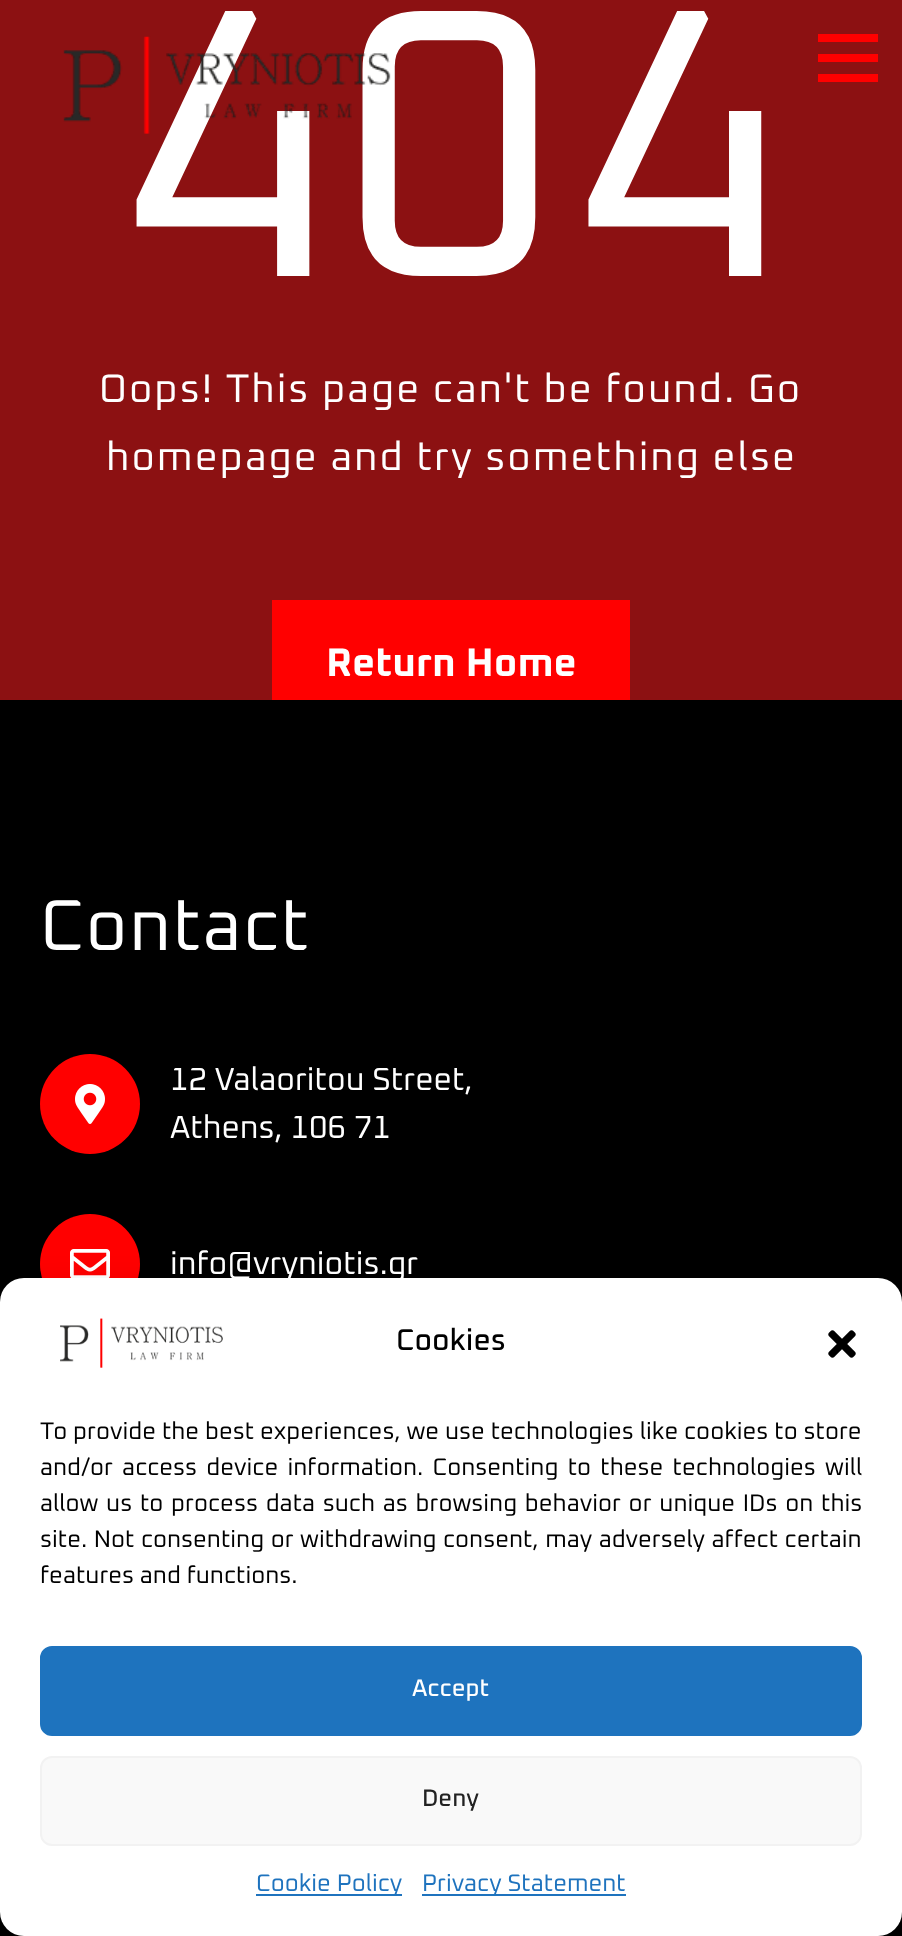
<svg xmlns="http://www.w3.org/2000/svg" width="902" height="1936">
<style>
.a{font:384px Oxanium;letter-spacing:4px;fill:#fff}
.b{font:40px Oxanium;letter-spacing:2px;fill:#fff}
.c{font:bold 40px Oxanium;fill:#fff}
.d{font:72px Oxanium;letter-spacing:1.5px;fill:#fff}
.e{font:32px Oxanium;fill:#fff}
.f{font:500 30px Oxanium;fill:#000}
.g{font:24px Oxanium;fill:#000}
.h{font:500 24px Oxanium;fill:#fff}
.i{font:500 24px Oxanium;fill:#222}
.j{font:24px Oxanium;fill:#1e73be}
</style>
<rect width="100%" height="100%" fill="#000"/>
<path fill="#8c1112" d="M0 0h902v700H0z"/>
<path fill="#f00" d="M272 600h358v100H272z"/>
<path fill="#f00" d="M818 54h60v8H818z"/>
<path fill="#f00" d="M818 34h60v8H818z"/>
<path fill="#f00" d="M818 74h60v8H818z"/>
<circle fill="#f00" cx="90" cy="1104" r="50"/>
<image href="2.png" x="75" y="1084" width="30" height="40"/>
<circle fill="#f00" cx="90" cy="1264" r="50"/>
<image href="3.png" x="70" y="1249" width="40" height="29"/>
<rect fill="#00000030" filter="blur(20px)" y="1298" width="902" height="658" rx="24"/>
<rect fill="#fff" y="1278" width="902" height="658" rx="24"/>
<image href="4.png" x="60" y="1318" width="163" height="50"/>
<image href="5.png" x="828" y="1330" width="28" height="28"/>
<rect fill="#1e73be" stroke="#1e73be" stroke-width="2" x="41" y="1647" width="820" height="88" rx="11"/>
<rect fill="#f9f9f9" stroke="#f2f2f2" stroke-width="2" x="41" y="1757" width="820" height="88" rx="11"/>
<path fill="#1e73be" d="M256 1894h146v2H256z"/>
<path fill="#1e73be" d="M422 1894h204v2H422z"/>
<text class="a" x="112" y="276">404</text>
<text class="b" x="99" y="402">Oops! This page can't be found. Go</text>
<text class="b" x="106" y="470">homepage and try something else</text>
<text class="c" x="326" y="676">Return Home</text>
<image href="1.png" x="63" y="36" width="328" height="98"/>
<text class="d" x="40" y="950">Contact</text>
<text class="e" x="170" y="1090">12 Valaoritou Street,</text>
<text class="e" x="170" y="1138">Athens, 106 71</text>
<text class="e" x="170" y="1274">info@vryniotis.gr</text>
<text class="f" x="396" y="1350">Cookies</text>
<text class="g" x="40" y="1439" word-spacing="0.1">To provide the best experiences, we use technologies like cookies to store</text>
<text class="g" x="40" y="1475" word-spacing="3.5">and/or access device information. Consenting to these technologies will</text>
<text class="g" x="40" y="1511" word-spacing="2">allow us to process data such as browsing behavior or unique IDs on this</text>
<text class="g" x="40" y="1547" word-spacing="0.75">site. Not consenting or withdrawing consent, may adversely affect certain</text>
<text class="g" x="40" y="1583">features and functions.</text>
<text class="h" x="412" y="1696">Accept</text>
<text class="i" x="422" y="1806">Deny</text>
<text class="j" x="256" y="1891">Cookie Policy</text>
<text class="j" x="422" y="1891">Privacy Statement</text>
</svg>
